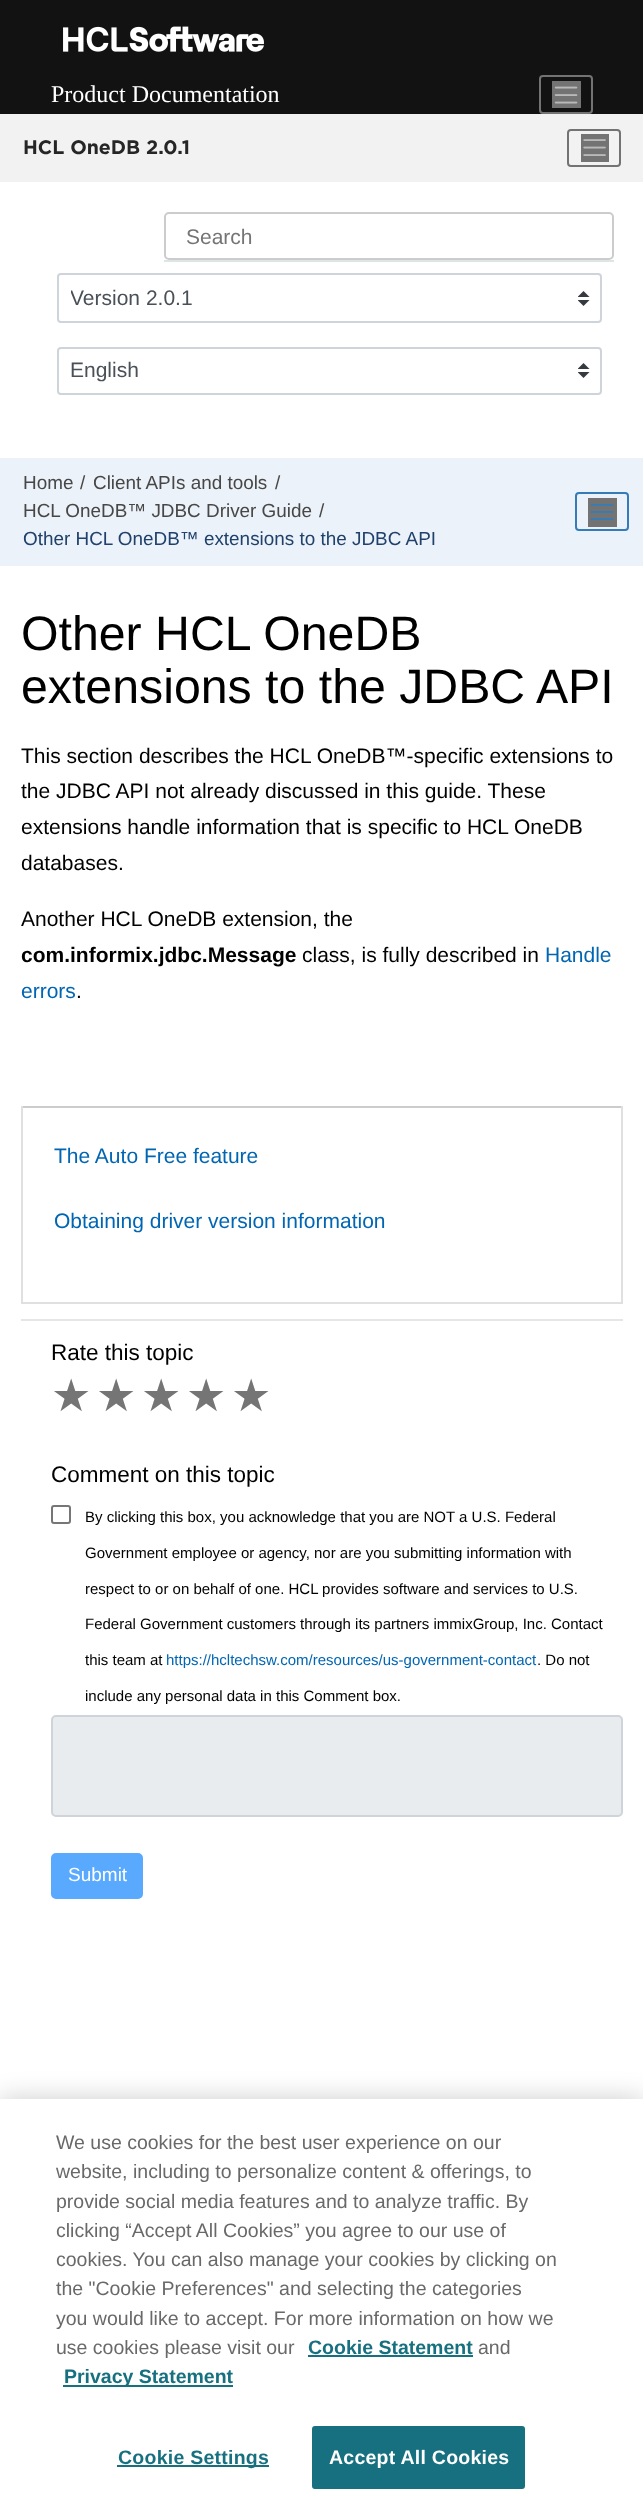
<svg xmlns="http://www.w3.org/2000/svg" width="643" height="2503">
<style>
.a{font:24px Liberation Serif;fill:#fff}
.b{font:bold 19.5px Gotham;fill:#262626}
.c{font:21px Liberation Sans;fill:#757575}
.d{font:21px Liberation Sans;fill:#495057}
.e{font:18.9px Liberation Sans;fill:#474747}
.f{font:18.9px Liberation Sans;fill:#1f416b}
.g{font:48.25px Liberation Sans;fill:#000}
.h{font:21px Liberation Sans;fill:#000}
.i{font:bold 21px Liberation Sans;fill:#000}
.j{font:21px Liberation Sans;fill:#0066b3}
.k{font:22.5px Liberation Sans;fill:#000}
.l{font:45px DejaVu Sans;fill:#757575}
.m{font:15px Liberation Sans;fill:#000}
.n{font:15px Liberation Sans;fill:#0066b3}
.o{font:19px Liberation Sans;fill:#fff}
.p{font:19.5px Liberation Sans;fill:#696969}
.q{font:bold 19.5px Liberation Sans;fill:#17707f}
.r{font:bold 19.5px Liberation Sans;letter-spacing:0.25px;fill:#17707f}
.s{font:bold 19.5px Liberation Sans;letter-spacing:0.25px;fill:#fff}
</style>
<defs>
<clipPath id="clip1"><path d="M71 282h504v32H71z"/></clipPath>
</defs>
<rect width="100%" height="100%" fill="#fff"/>
<path fill="#121212" d="M0 0h643v114H0z"/>
<image href="1.png" x="63" y="26" width="201" height="26"/>
<rect fill="none" stroke="#737373" stroke-width="2" x="540" y="76" width="52" height="37" rx="3"/>
<path fill="#737373" d="M552 81h29v27H552z"/>
<image href="2.png" x="554" y="86" width="24" height="18"/>
<path fill="#f2f2f2" d="M0 114h643v68H0z"/>
<rect fill="none" stroke="#737373" stroke-width="2" x="568" y="130" width="52" height="36" rx="3"/>
<path fill="#737373" d="M581 134h28v28H581z"/>
<image href="3.png" x="583" y="139" width="23" height="17"/>
<path fill="#dee5e7" d="M164 260h450v2H164z"/>
<rect fill="none" stroke="#ccc" stroke-width="2" x="165" y="213" width="448" height="46" rx="4"/>
<image href="4.png" x="578" y="291" width="12" height="15"/>
<rect fill="none" stroke="#ced4da" stroke-width="2" x="58" y="274" width="543" height="48" rx="3"/>
<image href="4.png" x="578" y="363" width="12" height="15"/>
<rect fill="none" stroke="#ced4da" stroke-width="2" x="58" y="348" width="543" height="46" rx="3"/>
<path fill="#ecf2f9" d="M0 458h643v108H0z"/>
<rect fill="none" stroke="#347bb7" stroke-width="2" x="576" y="493" width="52" height="37" rx="3"/>
<path fill="#737373" d="M588 498h29v29H588z"/>
<image href="5.png" x="590" y="504" width="24" height="16"/>
<path fill="#ccc" d="M21 1106h602v2H21z"/>
<path fill="#e0e0e0" d="M621 1106h2v198H621z"/>
<path fill="#e0e0e0" d="M21 1302h602v2H21z"/>
<path fill="#e0e0e0" d="M21 1106h2v198H21z"/>
<path fill="#e6e6e6" d="M21 1319h602v2H21z"/>
<rect fill="none" stroke="#767676" stroke-width="2" x="52" y="1506" width="18" height="17" rx="2"/>
<rect fill="#e9ecef" stroke="#ced4da" stroke-width="2" x="52" y="1716" width="570" height="100" rx="4"/>
<rect fill="#59a9ff" stroke="#59a9ff" stroke-width="2" x="52" y="1854" width="90" height="44" rx="4"/>
<path fill="#00000033" filter="blur(13.5px)" d="M0 2099h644v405H0z"/>
<path fill="#fff" d="M0 2099h643v404H0z"/>
<path fill="#17707f" d="M308 2355h165v2H308z"/>
<path fill="#17707f" d="M63 2385h170v2H63z"/>
<path fill="#17707f" d="M117 2465h152v2H117z"/>
<rect fill="#17707f" stroke="#17707f" stroke-width="2" x="313" y="2427" width="211" height="61" rx="2"/>
<text class="a" x="51" y="102">Product Documentation</text>
<text class="b" x="23" y="154">HCL OneDB 2.0.1</text>
<text class="c" x="186" y="244">Search</text>
<g clip-path="url(#clip1)">
<text class="d" x="70" y="305">Version 2.0.1</text>
</g>
<text class="d" x="70" y="377">English</text>
<text class="e" x="23" y="489">Home</text>
<text class="e" x="80" y="489">/</text>
<text class="e" x="93" y="489">Client APIs and tools</text>
<text class="e" x="275" y="489">/</text>
<text class="e" x="23" y="517">HCL OneDB™ JDBC Driver Guide</text>
<text class="e" x="319" y="517">/</text>
<text class="f" x="23" y="545">Other HCL OneDB™ extensions to the JDBC API</text>
<text class="g" x="21" y="650">Other HCL OneDB</text>
<text class="g" x="21" y="703">extensions to the JDBC API</text>
<text class="h" x="21" y="763">This section describes the HCL OneDB™-specific extensions to</text>
<text class="h" x="21" y="798">the JDBC API not already discussed in this guide. These</text>
<text class="h" x="21" y="834">extensions handle information that is specific to HCL OneDB</text>
<text class="h" x="21" y="870">databases.</text>
<text class="h" x="21" y="926">Another HCL OneDB extension, the</text>
<text class="i" x="21" y="962">com.informix.jdbc.Message</text>
<text class="h" x="302" y="962">class, is fully described in</text>
<text class="j" x="545" y="962">Handle</text>
<text class="j" x="21" y="998">errors</text>
<text class="h" x="76" y="998">.</text>
<text class="j" x="54" y="1163">The Auto Free feature</text>
<text class="j" x="54" y="1228">Obtaining driver version information</text>
<text class="k" x="51" y="1360">Rate this topic</text>
<text class="l" x="51" y="1411">★</text>
<text class="l" x="96" y="1411">★</text>
<text class="l" x="141" y="1411">★</text>
<text class="l" x="186" y="1411">★</text>
<text class="l" x="231" y="1411">★</text>
<text class="k" x="51" y="1482">Comment on this topic</text>
<text class="m" x="85" y="1522">By clicking this box, you acknowledge that you are NOT a U.S. Federal</text>
<text class="m" x="85" y="1558">Government employee or agency, nor are you submitting information with</text>
<text class="m" x="85" y="1594">respect to or on behalf of one. HCL provides software and services to U.S.</text>
<text class="m" x="85" y="1629">Federal Government customers through its partners immixGroup, Inc. Contact</text>
<text class="m" x="85" y="1665">this team at</text>
<text class="n" x="166" y="1665">https://hcltechsw.com/resources/us-government-contact</text>
<text class="m" x="537" y="1665">. Do not</text>
<text class="m" x="85" y="1701">include any personal data in this Comment box.</text>
<text class="o" x="68" y="1881">Submit</text>
<text class="p" x="56" y="2149">We use cookies for the best user experience on our</text>
<text class="p" x="56" y="2178">website, including to personalize content &amp; offerings, to</text>
<text class="p" x="56" y="2208">provide social media features and to analyze traffic. By</text>
<text class="p" x="56" y="2237">clicking “Accept All Cookies” you agree to our use of</text>
<text class="p" x="56" y="2266">cookies. You can also manage your cookies by clicking on</text>
<text class="p" x="56" y="2295">the "Cookie Preferences" and selecting the categories</text>
<text class="p" x="56" y="2325">you would like to accept. For more information on how we</text>
<text class="p" x="56" y="2354">use cookies please visit our</text>
<text class="q" x="308" y="2354">Cookie Statement</text>
<text class="p" x="478" y="2354">and</text>
<text class="q" x="64" y="2383">Privacy Statement</text>
<text class="r" x="118" y="2464">Cookie Settings</text>
<text class="s" x="329" y="2464">Accept All Cookies</text>
</svg>
